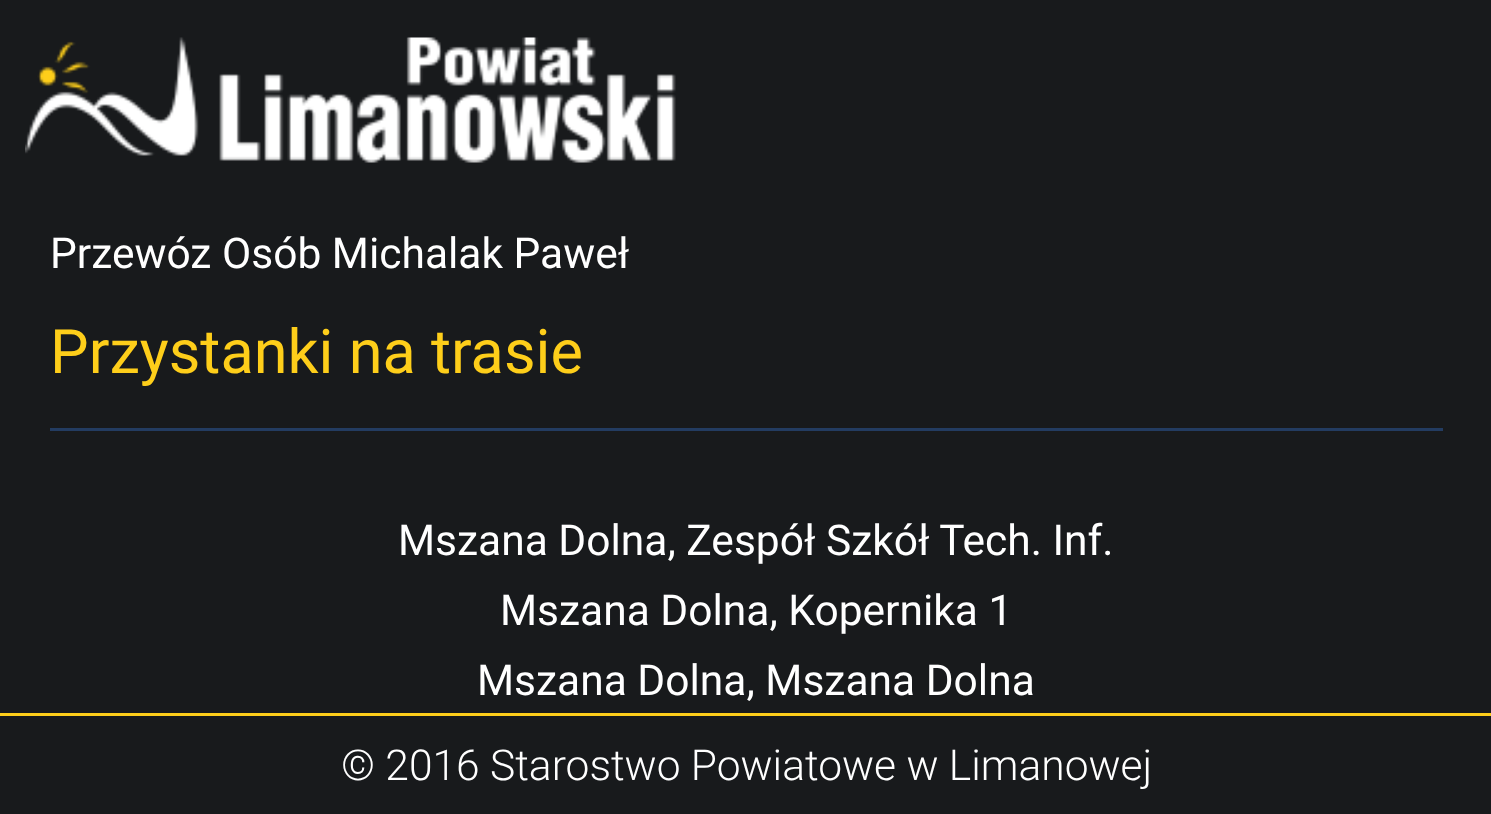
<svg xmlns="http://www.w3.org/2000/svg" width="1491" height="814">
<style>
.a{font:42.5px Roboto;fill:#fff}
.b{font:61.25px Roboto;fill:#fece1a}
.c{font:300 42.5px Roboto;fill:#fff}
</style>
<rect width="100%" height="100%" fill="#181a1c"/>
<image href="1.png" x="25" y="37" width="651" height="126"/>
<path fill="#233c61" d="M50 428h1393v3H50z"/>
<path fill="#fece1a" d="M0 713h1491v3H0z"/>
<text class="a" x="50" y="268">Przewóz Osób Michalak Paweł</text>
<text class="b" x="50" y="373">Przystanki na trasie</text>
<text class="a" x="398" y="555">Mszana Dolna, Zespół Szkół Tech. Inf.</text>
<text class="a" x="500" y="625">Mszana Dolna, Kopernika 1</text>
<text class="a" x="477" y="695">Mszana Dolna, Mszana Dolna</text>
<text class="c" x="341" y="780">© 2016 Starostwo Powiatowe w Limanowej</text>
</svg>
